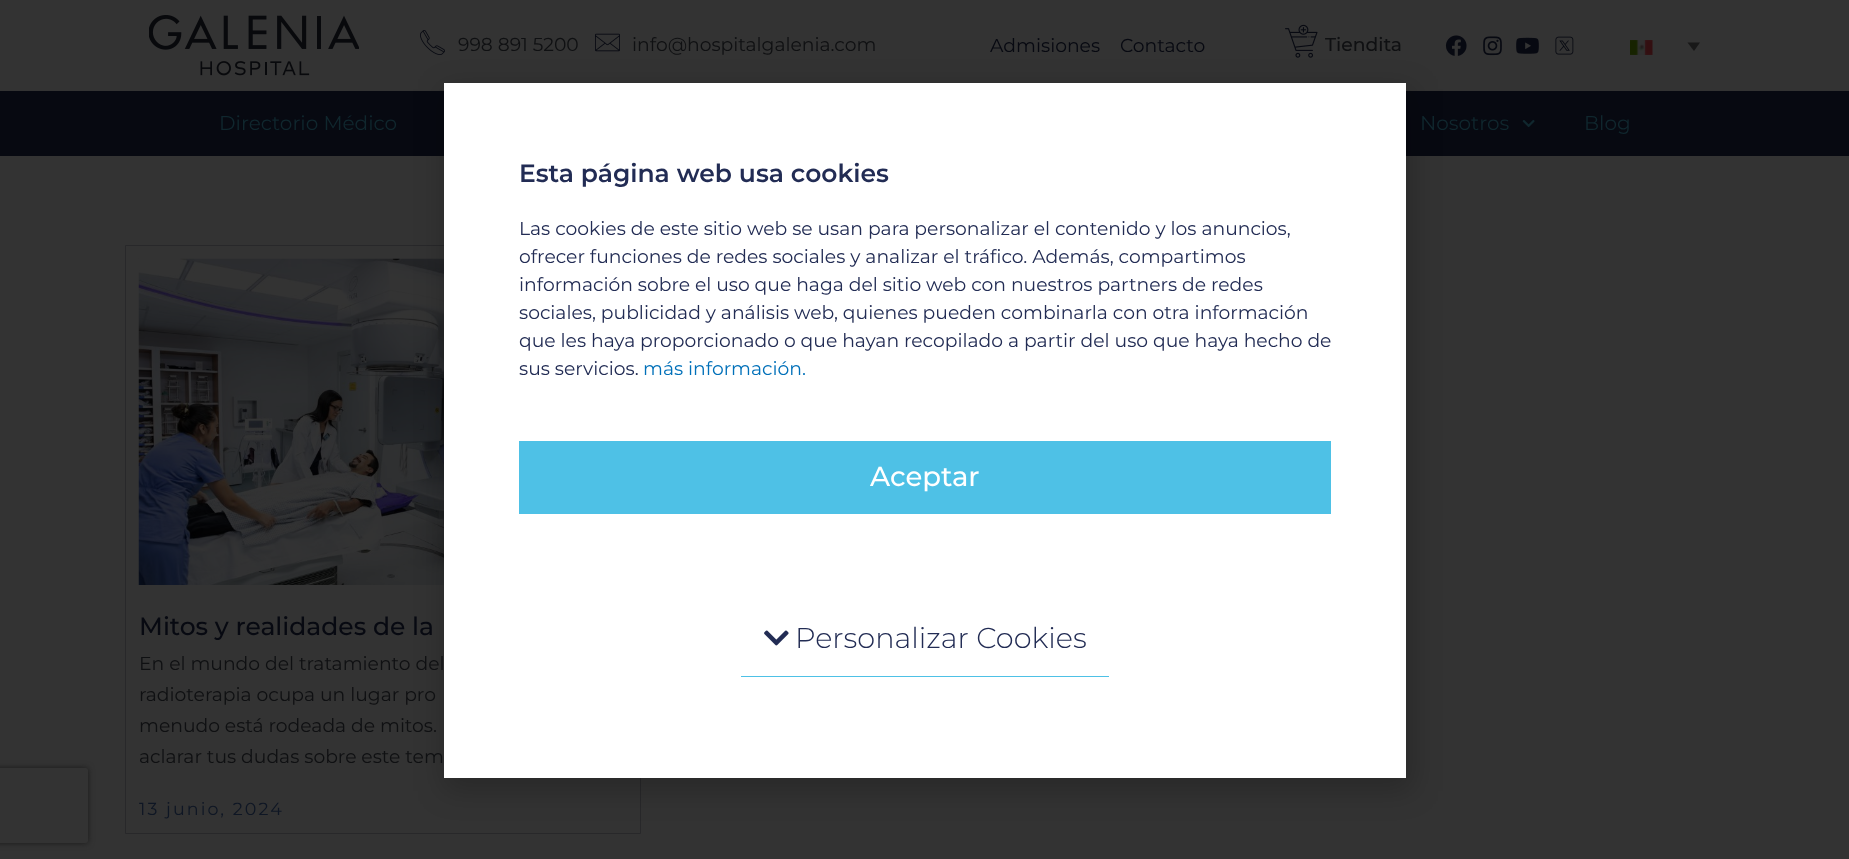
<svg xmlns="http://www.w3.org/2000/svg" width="1849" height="859">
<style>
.a{font:18.75px Montserrat;fill:#0f1012}
.b{font:18.75px Montserrat;fill:#070911}
.c{font:500 18.75px Montserrat;fill:#0f1012}
.d{font:20px Montserrat;fill:#10272e}
.e{font:500 25px Montserrat;fill:#070911}
.f{font:17.5px Montserrat;letter-spacing:2.1px;fill:#0e1624}
.g{font:600 25px Montserrat;fill:#222c54}
.h{font:18.75px Montserrat;fill:#222c54}
.i{font:18.75px Montserrat;fill:#0170b9}
.j{font:500 27.5px Montserrat;fill:#fff}
.k{font:300 28.75px Montserrat;fill:#222c54}
</style>
<defs>
<clipPath id="clip1"><path d="M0 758h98v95h-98zm-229.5 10h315c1.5 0 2.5 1 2.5 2.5v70c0 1.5-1 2.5-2.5 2.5h-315c-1.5 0-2.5-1-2.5-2.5v-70c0-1.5 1-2.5 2.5-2.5z" clip-rule="evenodd"/></clipPath>
</defs>
<rect width="100%" height="100%" fill="#333"/>
<image href="1.png" x="149" y="15" width="210" height="61"/>
<image href="2.png" x="420" y="30" width="25" height="25"/>
<image href="3.png" x="595" y="33" width="25" height="19"/>
<image href="4.png" x="1285" y="24" width="33" height="34"/>
<image href="5.png" x="1445" y="35" width="22" height="21"/>
<image href="6.png" x="1483" y="36" width="19" height="20"/>
<image href="7.png" x="1516" y="37" width="23" height="17"/>
<image href="8.png" x="1555" y="36" width="19" height="19"/>
<image href="9.png" x="1630" y="40" width="23" height="15"/>
<path fill="#181818" d="M1687.5 42.5h12.5l-6 8.5z"/>
<path fill="#070911" d="M0 91h1849v65H0z"/>
<image href="10.png" x="1522" y="119" width="13" height="9"/>
<g clip-path="url(#clip1)">
<rect fill="#1a1a1a" filter="blur(3px)" x="-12" y="768" width="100" height="75" rx="2.5"/>
</g>
<path fill="none" stroke="#28282a" d="M125.5 245.5h515v588H125.5z"/>
<image href="11.png" x="138" y="258" width="306" height="327"/>
<path fill="#00000033" filter="blur(14.5px)" d="M443 89h970v702H443z"/>
<path fill="#fff" d="M444 83h962v695H444z"/>
<path fill="#4ec1e6" d="M519 441h812v73H519z"/>
<path fill="#4ec1e6" d="M741 676h368v1H741z"/>
<image href="12.png" x="764" y="630" width="25" height="16"/>
<text class="a" x="458" y="51">998 891 5200</text>
<text class="a" x="632" y="51">info@hospitalgalenia.com</text>
<text class="b" x="990" y="52">Admisiones</text>
<text class="b" x="1120" y="52">Contacto</text>
<text class="c" x="1325" y="51">Tiendita</text>
<text class="d" x="219" y="130">Directorio Médico</text>
<text class="d" x="1420" y="130">Nosotros</text>
<text class="d" x="1584" y="130">Blog</text>
<text class="e" x="139" y="635">Mitos y realidades de la</text>
<text class="a" x="139" y="670">En el mundo del tratamiento del</text>
<text class="a" x="139" y="701">radioterapia ocupa un lugar pro</text>
<text class="a" x="139" y="732">menudo está rodeada de mitos.</text>
<text class="a" x="139" y="763">aclarar tus dudas sobre este tem</text>
<text class="f" x="139" y="815">13 junio, 2024</text>
<text class="g" x="519" y="182">Esta página web usa cookies</text>
<text class="h" x="519" y="235">Las cookies de este sitio web se usan para personalizar el contenido y los anuncios,</text>
<text class="h" x="519" y="263">ofrecer funciones de redes sociales y analizar el tráfico. Además, compartimos</text>
<text class="h" x="519" y="291">información sobre el uso que haga del sitio web con nuestros partners de redes</text>
<text class="h" x="519" y="319">sociales, publicidad y análisis web, quienes pueden combinarla con otra información</text>
<text class="h" x="519" y="347">que les haya proporcionado o que hayan recopilado a partir del uso que haya hecho de</text>
<text class="h" x="519" y="375">sus servicios.</text>
<text class="i" x="643" y="375">más información.</text>
<text class="j" x="870" y="486">Aceptar</text>
<text class="k" x="795" y="648">Personalizar Cookies</text>
</svg>
